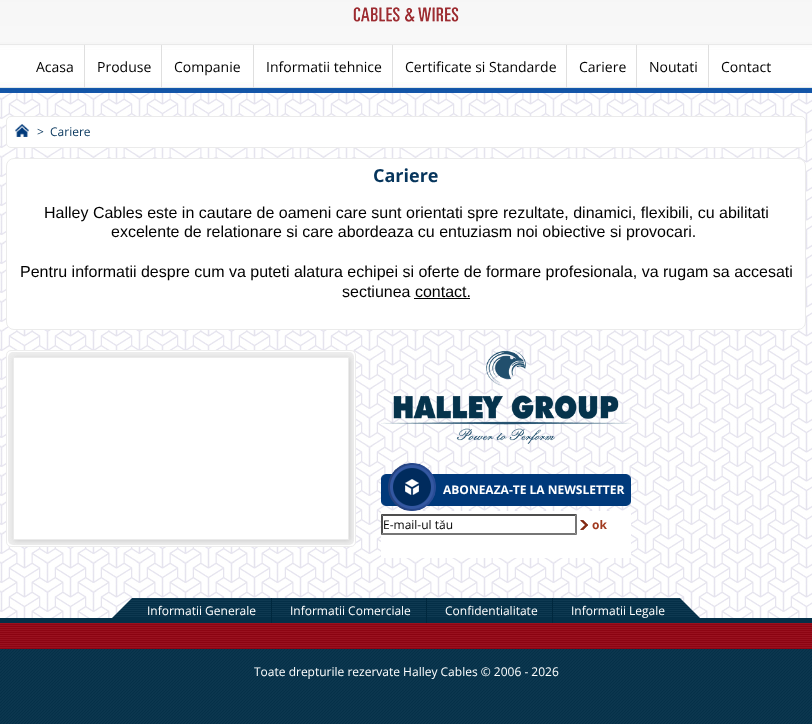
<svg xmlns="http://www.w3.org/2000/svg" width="812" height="724">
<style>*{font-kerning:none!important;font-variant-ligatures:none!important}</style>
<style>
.a{font:14px Open Sans;fill:#000}
.b{font:12px Open Sans;fill:#06355c}
.c{font:bold 18px Open Sans;fill:#06355c}
.d{font:16px Liberation Sans;fill:#000}
.e{font:bold 12px Open Sans;fill:#fff}
.f{font:12px Open Sans;fill:#000}
.g{font:bold 12px Open Sans;fill:#a13b20}
.h{font:12px Open Sans;fill:#fff}
</style>
<rect width="100%" height="100%" fill="#fff"/>
<image href="1.png" x="0" y="93" width="812" height="525"/>
<image href="2.png" x="0" y="0" width="812" height="93"/>
<image href="3.png" x="353" y="7" width="106" height="15"/>
<path fill="#dfdfdf" d="M84 45h1v43H84z"/>
<path fill="#dfdfdf" d="M161 45h1v43H161z"/>
<path fill="#dfdfdf" d="M253 45h1v43H253z"/>
<path fill="#dfdfdf" d="M392 45h1v43H392z"/>
<path fill="#dfdfdf" d="M566 45h1v43H566z"/>
<path fill="#dfdfdf" d="M636 45h1v43H636z"/>
<path fill="#dfdfdf" d="M708 45h1v43H708z"/>
<rect fill="#fff" stroke="#ebebeb" x="6.5" y="116.5" width="799" height="31" rx="4.5"/>
<image href="4.png" x="15" y="124" width="14" height="13"/>
<rect fill="#fff" stroke="#ebebeb" x="6.5" y="158.5" width="799" height="171" rx="7.5"/>
<path fill="#000" d="M414 298h56v1H414z"/>
<rect fill="#fff" stroke="#ededed" x="6.5" y="350.5" width="349" height="196" rx="4.5"/>
<rect fill="#ededed" x="8" y="352" width="346" height="193" rx="5"/>
<path fill="#ccc" filter="blur(2.5px)" d="M14 358h336v183H14z"/>
<path fill="#fff" stroke="#ebebeb" d="M13.5 357.5h335v182H13.5z"/>
<image href="5.png" x="381" y="350" width="250" height="94"/>
<image href="6.png" x="381" y="463" width="250" height="48"/>
<path fill="#fff" d="M381 511h250v47H381z"/>
<path fill="#4f4f4f" d="M381 514h196l-2 2h-192z"/>
<path fill="#767676" d="M577 514v21l-2-2v-17z"/>
<path fill="#767676" d="M577 535h-196l2-2h192z"/>
<path fill="#4f4f4f" d="M381 535v-21l2 2v17z"/>
<image href="7.png" x="580" y="520" width="8" height="10"/>
<image href="8.png" x="112" y="598" width="20" height="20"/>
<image href="9.png" x="132" y="598" width="548" height="20"/>
<path fill="#053048" d="M0 618h812v5H0z"/>
<path fill="#00283e" d="M271 598h1v25H271z"/>
<path fill="#00283e" d="M426 598h1v25H426z"/>
<path fill="#00283e" d="M552 598h1v25H552z"/>
<image href="10.png" x="680" y="598" width="20" height="20"/>
<image href="11.png" x="0" y="623" width="812" height="26"/>
<image href="12.png" x="0" y="649" width="812" height="75"/>
<text class="a" x="36" y="72">Acasa</text>
<text class="a" x="97" y="72">Produse</text>
<text class="a" x="174" y="72">Companie</text>
<text class="a" x="266" y="72">Informatii tehnice</text>
<text class="a" x="405" y="72">Certificate si Standarde</text>
<text class="a" x="579" y="72">Cariere</text>
<text class="a" x="649" y="72">Noutati</text>
<text class="a" x="721" y="72">Contact</text>
<text class="b" x="37" y="136">&gt;</text>
<text class="b" x="50" y="136">Cariere</text>
<text class="c" x="373" y="182">Cariere</text>
<text class="d" x="44" y="218">Halley Cables este in cautare de oameni care sunt orientati spre rezultate, dinamici, flexibili, cu abilitati</text>
<text class="d" x="111" y="237">excelente de relationare si care abordeaza cu entuziasm noi obiective si provocari. </text>
<text class="d" x="20" y="277">Pentru informatii despre cum va puteti alatura echipei si oferte de formare profesionala, va rugam sa accesati</text>
<text class="d" x="342" y="297">sectiunea contact.</text>
<text class="e" x="443" y="494">ABONEAZA-TE LA NEWSLETTER</text>
<text class="f" x="383" y="529">E-mail-ul tău</text>
<text class="g" x="592" y="529">ok</text>
<text class="h" x="147" y="615">Informatii Generale</text>
<text class="h" x="290" y="615">Informatii Comerciale</text>
<text class="h" x="445" y="615">Confidentialitate</text>
<text class="h" x="571" y="615">Informatii Legale</text>
<text class="h" x="254" y="676">Toate drepturile rezervate Halley Cables © 2006 - 2026</text>
</svg>
